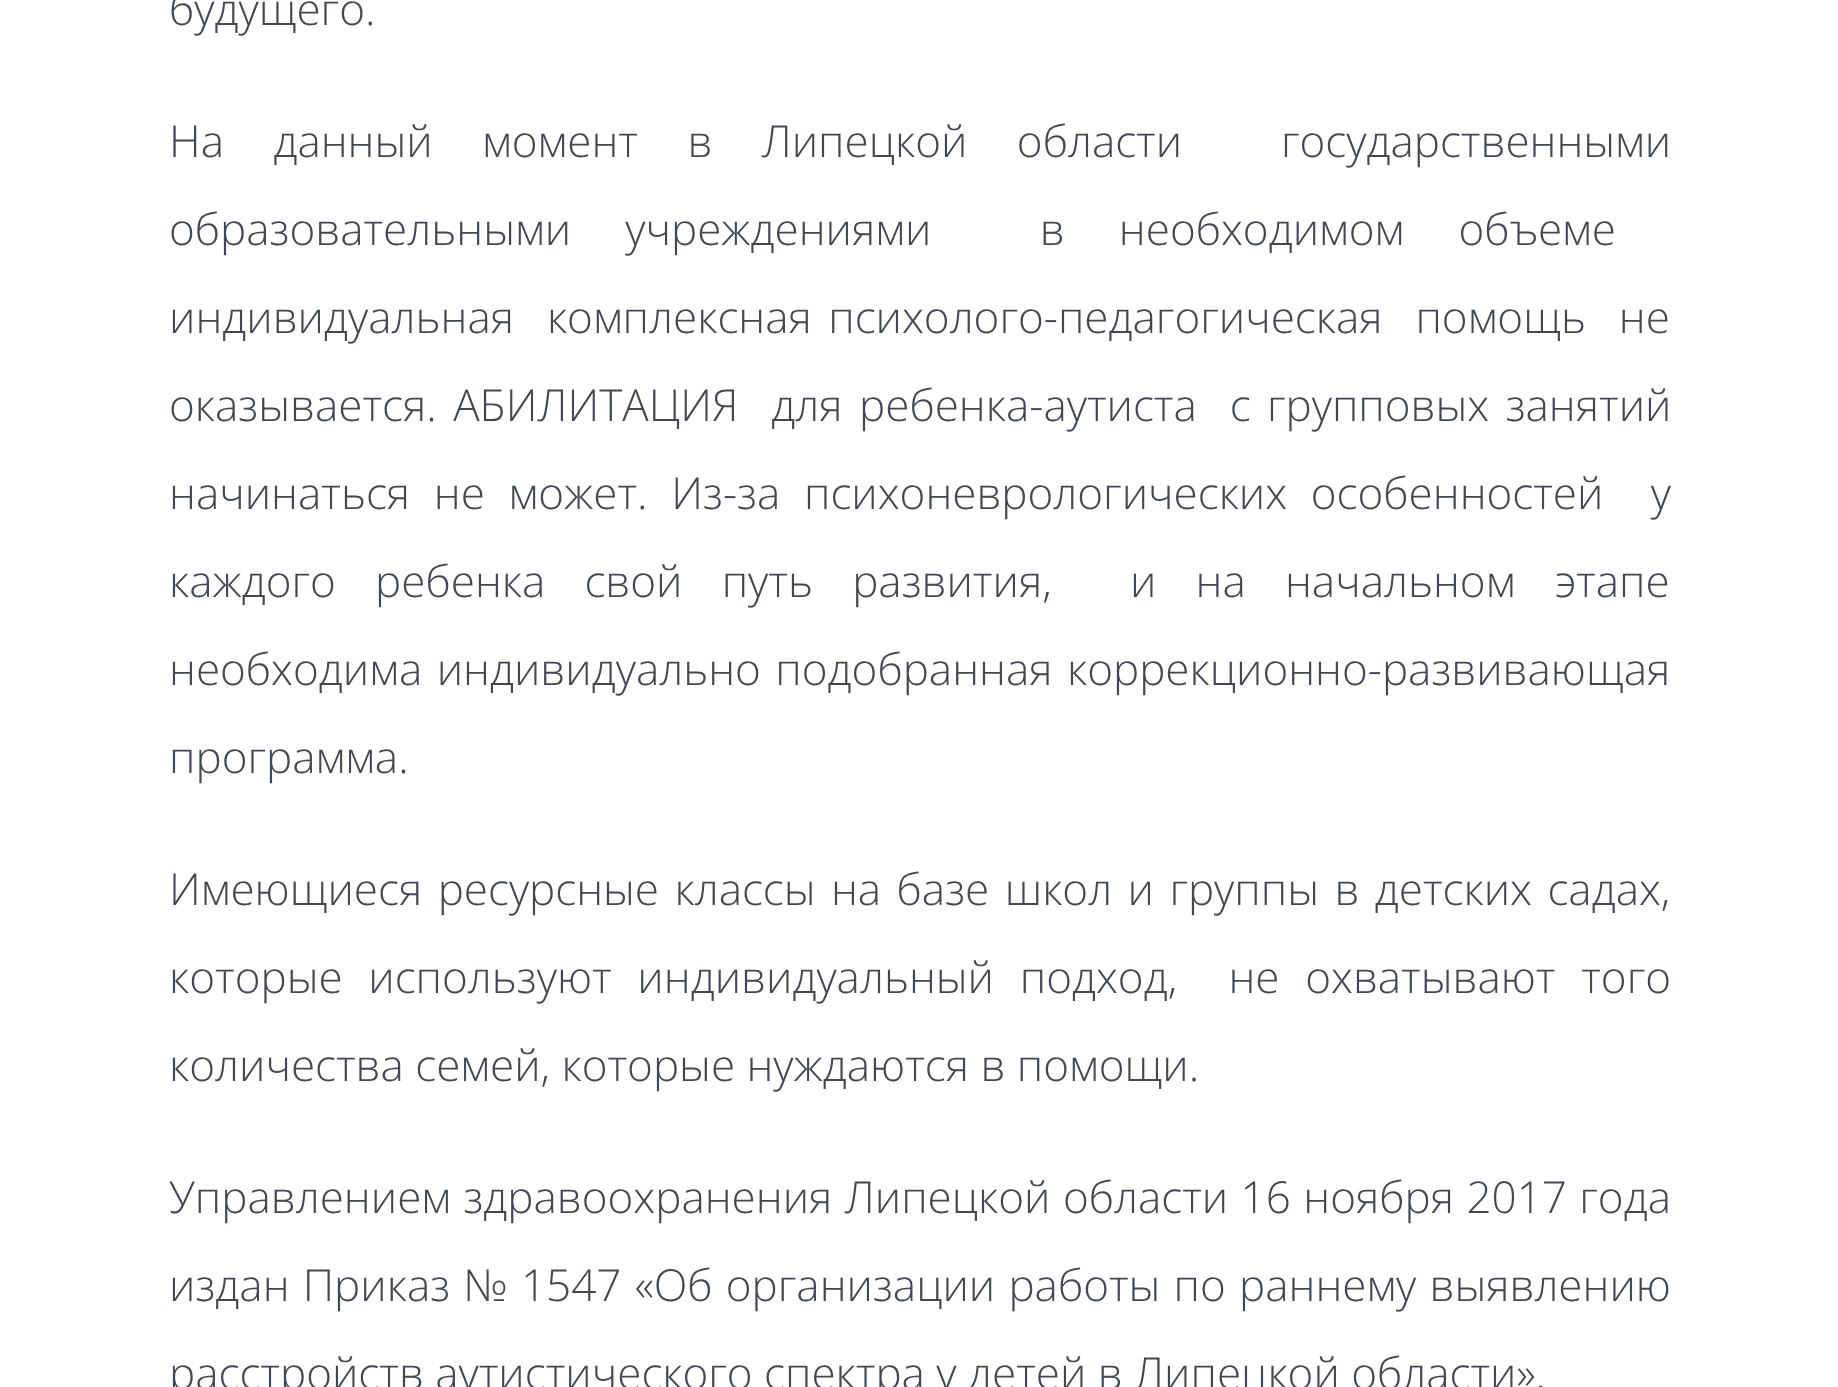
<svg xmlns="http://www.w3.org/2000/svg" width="1838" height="1387">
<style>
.a{font:300 44px Open Sans;fill:#424753}
</style>
<rect width="100%" height="100%" fill="#fff"/>
<text class="a" x="169" y="25">будущего.</text>
<text class="a" xml:space="preserve" x="169" y="157" word-spacing="38">На данный момент в Липецкой области  государственными</text>
<text class="a" xml:space="preserve" x="169" y="245" word-spacing="42.75">образовательными учреждениями  в необходимом объеме</text>
<text class="a" xml:space="preserve" x="169" y="333" word-spacing="5">индивидуальная  комплексная психолого-педагогическая  помощь  не</text>
<text class="a" xml:space="preserve" x="169" y="421" word-spacing="5">оказывается. АБИЛИТАЦИЯ  для ребенка-аутиста  с групповых занятий</text>
<text class="a" xml:space="preserve" x="169" y="509" word-spacing="12.25">начинаться не может. Из-за психоневрологических особенностей  у</text>
<text class="a" xml:space="preserve" x="169" y="597" word-spacing="27.75">каждого ребенка свой путь развития,  и на начальном этапе</text>
<text class="a" x="169" y="685" word-spacing="3">необходима индивидуально подобранная коррекционно-развивающая</text>
<text class="a" x="169" y="773">программа.</text>
<text class="a" x="169" y="905" word-spacing="4">Имеющиеся ресурсные классы на базе школ и группы в детских садах,</text>
<text class="a" xml:space="preserve" x="169" y="993" word-spacing="14.25">которые используют индивидуальный подход,  не охватывают того</text>
<text class="a" x="169" y="1081">количества семей, которые нуждаются в помощи.</text>
<text class="a" x="169" y="1213" word-spacing="1">Управлением здравоохранения Липецкой области 16 ноября 2017 года</text>
<text class="a" x="169" y="1301" word-spacing="1.75">издан Приказ № 1547 «Об организации работы по раннему выявлению</text>
<text class="a" x="169" y="1389">расстройств аутистического спектра у детей в Липецкой области».</text>
</svg>
